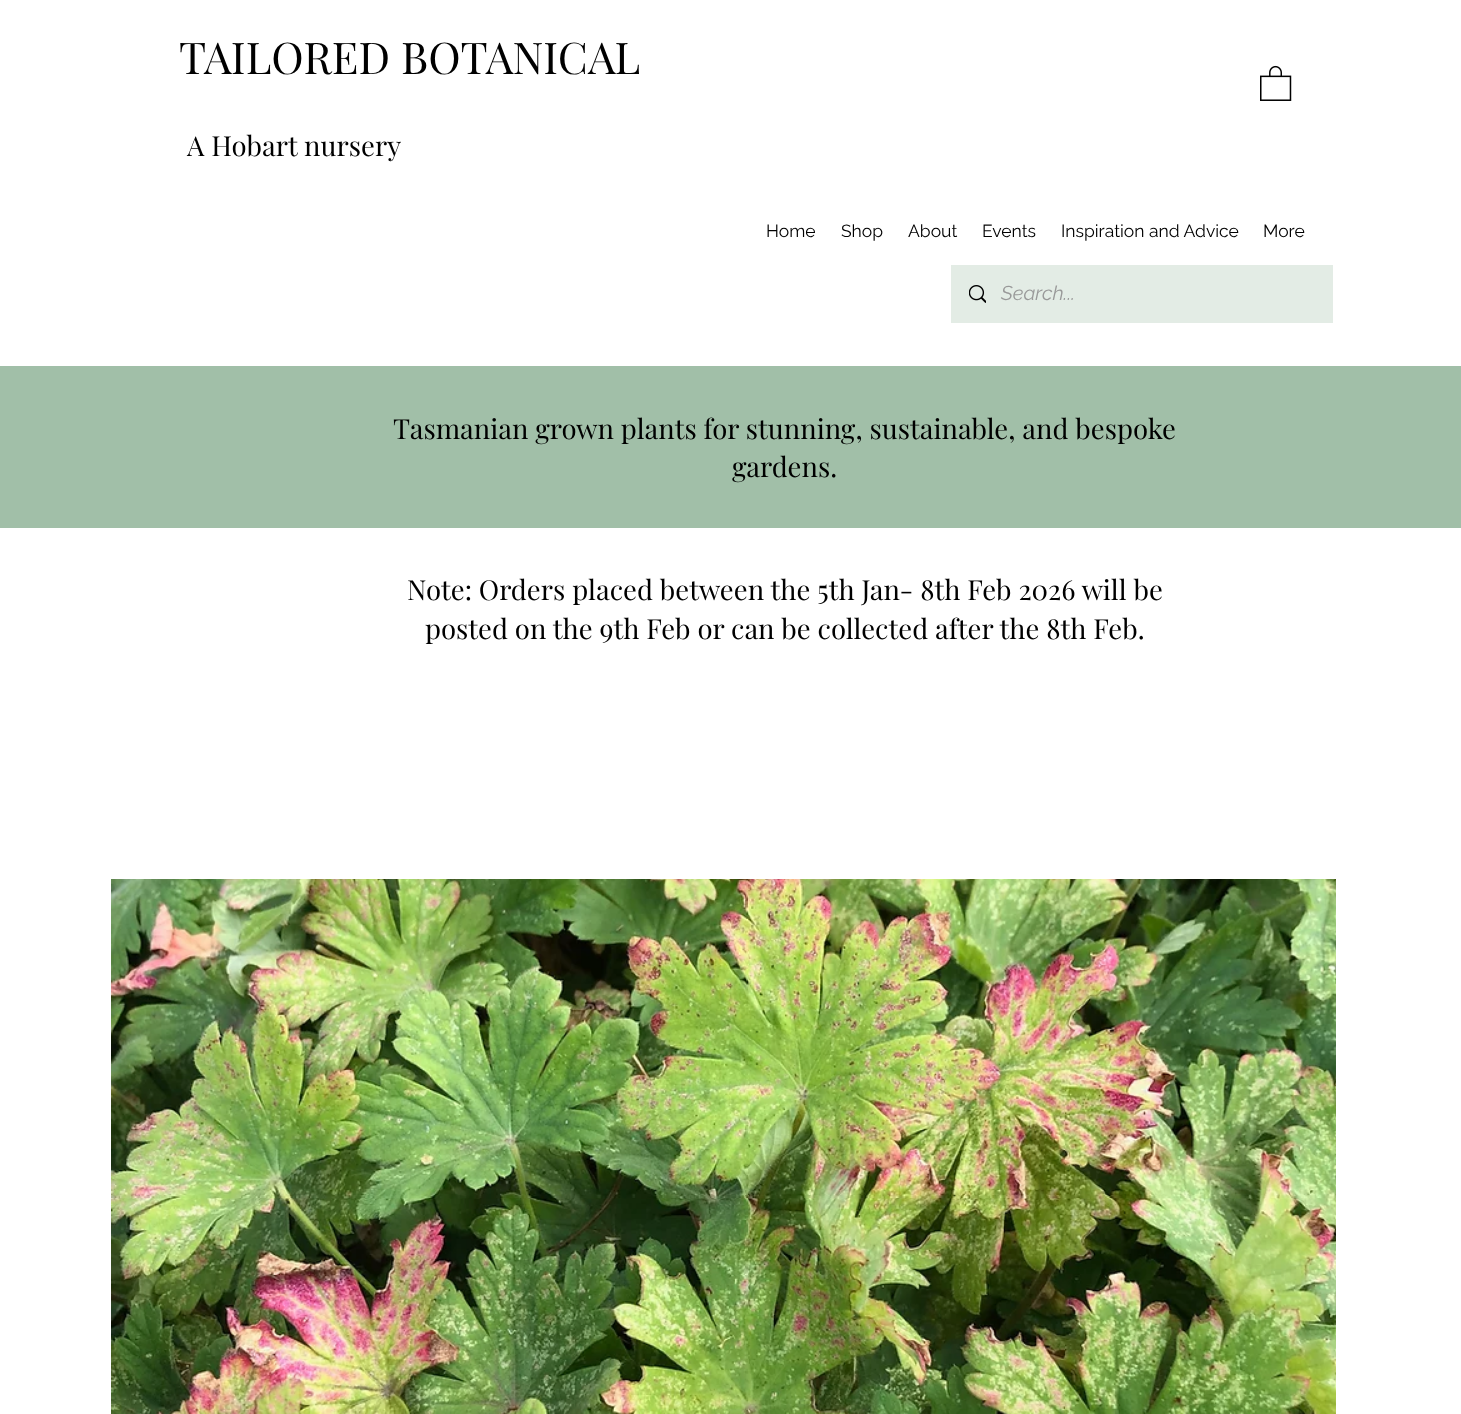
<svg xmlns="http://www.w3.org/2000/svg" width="1461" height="1414">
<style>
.a{font:43.75px Playfair Display;fill:#000}
.b{font:27.5px Playfair Display;fill:#000}
.c{font:17.5px Raleway;fill:#000}
.d{font:italic 20px Raleway;fill:#999}
</style>
<rect width="100%" height="100%" fill="#fff"/>
<image href="1.png" x="1260" y="65" width="32" height="36"/>
<path fill="#e3ece5" d="M951 265h382v58H951z"/>
<image href="2.png" x="969" y="285" width="17" height="18"/>
<path fill="#a1bfa8" d="M0 366h1461v162H0z"/>
<image href="3.png" x="111" y="879" width="1225" height="535"/>
<text class="a" x="179" y="74">TAILORED BOTANICAL</text>
<text class="b" x="187" y="156">A Hobart nursery</text>
<text class="c" x="766" y="237">Home</text>
<text class="c" x="841" y="237">Shop</text>
<text class="c" x="908" y="237">About</text>
<text class="c" x="982" y="237">Events</text>
<text class="c" x="1061" y="237">Inspiration and Advice</text>
<text class="c" x="1263" y="237">More</text>
<text class="d" x="1001" y="300">Search...</text>
<text class="b" x="393" y="439">Tasmanian grown plants for stunning, sustainable, and bespoke</text>
<text class="b" x="732" y="477">gardens.</text>
<text class="b" x="407" y="600">Note: Orders placed between the 5th Jan- 8th Feb 2026 will be</text>
<text class="b" x="425" y="639">posted on the 9th Feb or can be collected after the 8th Feb.</text>
</svg>
